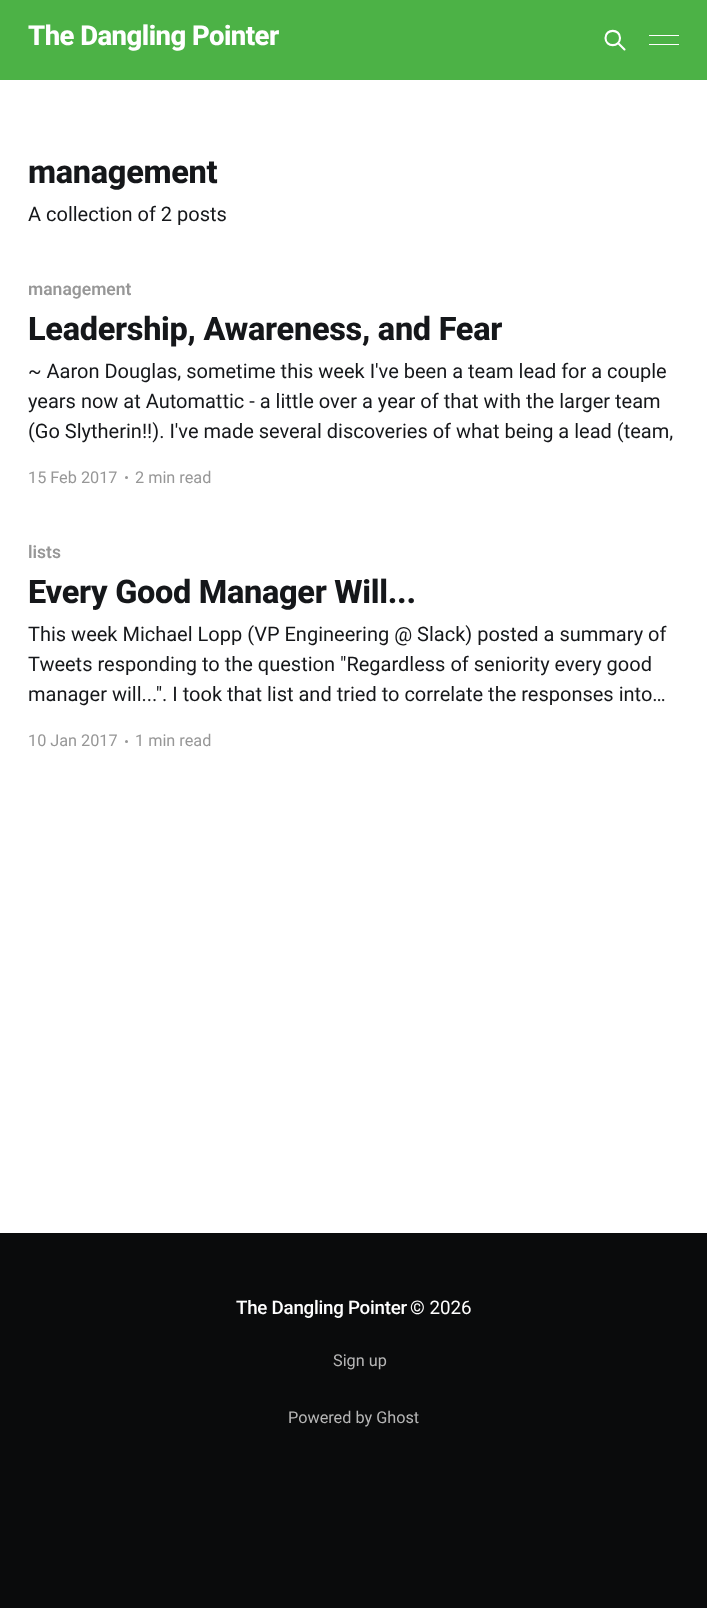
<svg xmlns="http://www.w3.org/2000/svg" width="707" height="1608">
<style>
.a{font:800 27.5px Roboto;letter-spacing:-0.55px;fill:#fff}
.b{font:800 32.5px Roboto;letter-spacing:-0.3px;fill:#15171a}
.c{font:20px Roboto;fill:#15171a}
.d{font:600 17.5px Roboto;fill:#979797}
.e{font:16.25px Roboto;fill:#979797}
.f{font:500 18.75px Roboto;letter-spacing:-0.25px;fill:#fff}
.g{font:18.75px Roboto;fill:#fff}
.h{font:16.25px Roboto;fill:#b6b6b6}
</style>
<rect width="100%" height="100%" fill="#fff"/>
<path fill="#4cb246" d="M0 0h707v80H0z"/>
<path fill="none" stroke="#fff" stroke-width="2.1" stroke-linecap="round" stroke-linejoin="round" d="M624.5 49.5l-6.5-6.5m2-5c0 9.5-14.5 9.5-14.5 0c0-9.5 14.5-9.5 14.5 0z"/>
<path fill="#fff" d="M649 35h30v1H649z"/>
<path fill="#fff" d="M649 44h30v1H649z"/>
<circle fill="#979797" cx="126.5" cy="477.5" r="1.5"/>
<circle fill="#979797" cx="126.5" cy="741.5" r="1.5"/>
<path fill="#0a0b0c" d="M0 1233h707v375H0z"/>
<text class="a" x="28" y="45">The Dangling Pointer</text>
<text class="b" x="28" y="183">management</text>
<text class="c" x="28" y="221">A collection of 2 posts</text>
<text class="d" x="28" y="295">management</text>
<text class="b" x="28" y="340">Leadership, Awareness, and Fear</text>
<text class="c" x="28" y="378">~ Aaron Douglas, sometime this week I've been a team lead for a couple</text>
<text class="c" x="28" y="408">years now at Automattic - a little over a year of that with the larger team</text>
<text class="c" x="28" y="438">(Go Slytherin!!). I've made several discoveries of what being a lead (team,</text>
<text class="e" x="28" y="483">15 Feb 2017</text>
<text class="e" x="135" y="483">2 min read</text>
<text class="d" x="28" y="558">lists</text>
<text class="b" x="28" y="603">Every Good Manager Will...</text>
<text class="c" x="28" y="641">This week Michael Lopp (VP Engineering @ Slack) posted a summary of</text>
<text class="c" x="28" y="671">Tweets responding to the question "Regardless of seniority every good</text>
<text class="c" x="28" y="701">manager will...". I took that list and tried to correlate the responses into…</text>
<text class="e" x="28" y="746">10 Jan 2017</text>
<text class="e" x="135" y="746">1 min read</text>
<text class="f" x="236" y="1314">The Dangling Pointer</text>
<text class="g" x="410" y="1314">© 2026</text>
<text class="h" x="333" y="1366">Sign up</text>
<text class="h" x="288" y="1423">Powered by Ghost</text>
</svg>
